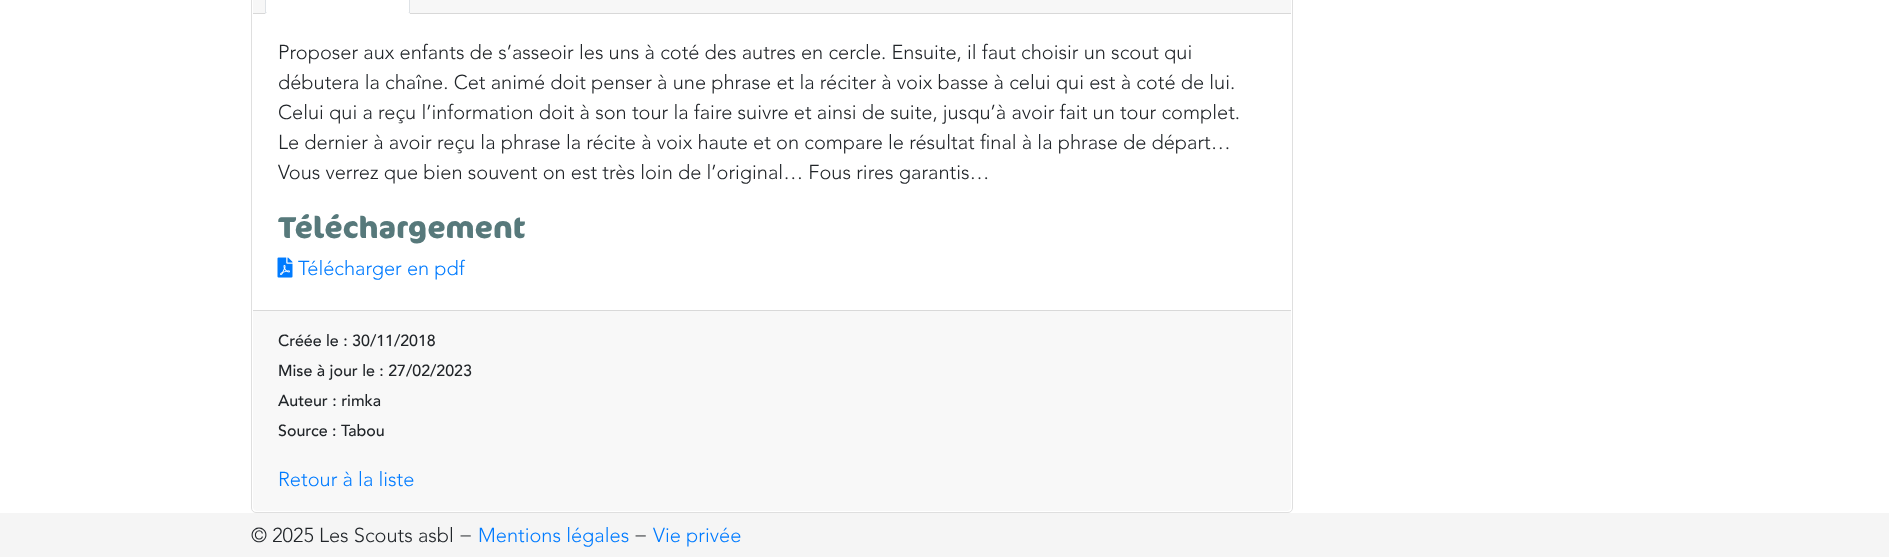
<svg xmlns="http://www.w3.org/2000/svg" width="1889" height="557">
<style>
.a{font:300 20px Avenir;fill:#212529}
.b{font:bold 30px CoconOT;fill:#57797b}
.c{font:300 20px Avenir;fill:#007bff}
.d{font:500 16px Avenir;fill:#212529}
</style>
<rect width="100%" height="100%" fill="#fff"/>
<rect fill="none" stroke="#dfdfdf" x="251.5" y="-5.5" width="1041" height="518" rx="4.5"/>
<path fill="#f7f7f7" d="M253 0h1038v13H253z"/>
<path fill="#d8d8d8" d="M253 13h1038v1H253z"/>
<path fill="#fff" d="M265 0h145v14H265z"/>
<path fill="#dee2e6" d="M410 14v-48c0-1 0-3-1-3h-1c1 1 1 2 1 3v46h-1z"/>
<path fill="#fff" d="M410 14h-145l2-2h141z"/>
<path fill="#dee2e6" d="M265 14l2-2h-1v-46c0-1 0-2 1-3h-1c-1 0-1 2-1 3z"/>
<image href="1.png" x="277" y="257" width="16" height="21"/>
<path fill="#f8f8f8" d="M253 310h1038v197c0 2-2 4-4 4h-1030c-2 0-4-2-4-4z"/>
<path fill="#d9d9d9" d="M253 310h1038v1H253z"/>
<path fill="#f5f5f5" d="M0 513h1889v44H0z"/>
<text class="a" x="278" y="59">Proposer aux enfants de s’asseoir les uns à coté des autres en cercle. Ensuite, il faut choisir un scout qui</text>
<text class="a" x="278" y="89">débutera la chaîne. Cet animé doit penser à une phrase et la réciter à voix basse à celui qui est à coté de lui.</text>
<text class="a" x="278" y="119">Celui qui a reçu l’information doit à son tour la faire suivre et ainsi de suite, jusqu’à avoir fait un tour complet.</text>
<text class="a" x="278" y="149">Le dernier à avoir reçu la phrase la récite à voix haute et on compare le résultat final à la phrase de départ…</text>
<text class="a" x="278" y="179">Vous verrez que bien souvent on est très loin de l’original… Fous rires garantis…</text>
<text class="b" x="278" y="238">Téléchargement</text>
<text class="c" x="298" y="275">Télécharger en pdf</text>
<text class="d" x="278" y="346">Créée le : 30/11/2018</text>
<text class="d" x="278" y="376">Mise à jour le : 27/02/2023</text>
<text class="d" x="278" y="406">Auteur : rimka</text>
<text class="d" x="278" y="436">Source : Tabou</text>
<text class="c" x="278" y="486">Retour à la liste</text>
<text class="a" x="251" y="542">© 2025 Les Scouts asbl −</text>
<text class="c" x="478" y="542">Mentions légales</text>
<text class="a" x="634" y="542">−</text>
<text class="c" x="653" y="542">Vie privée</text>
</svg>
